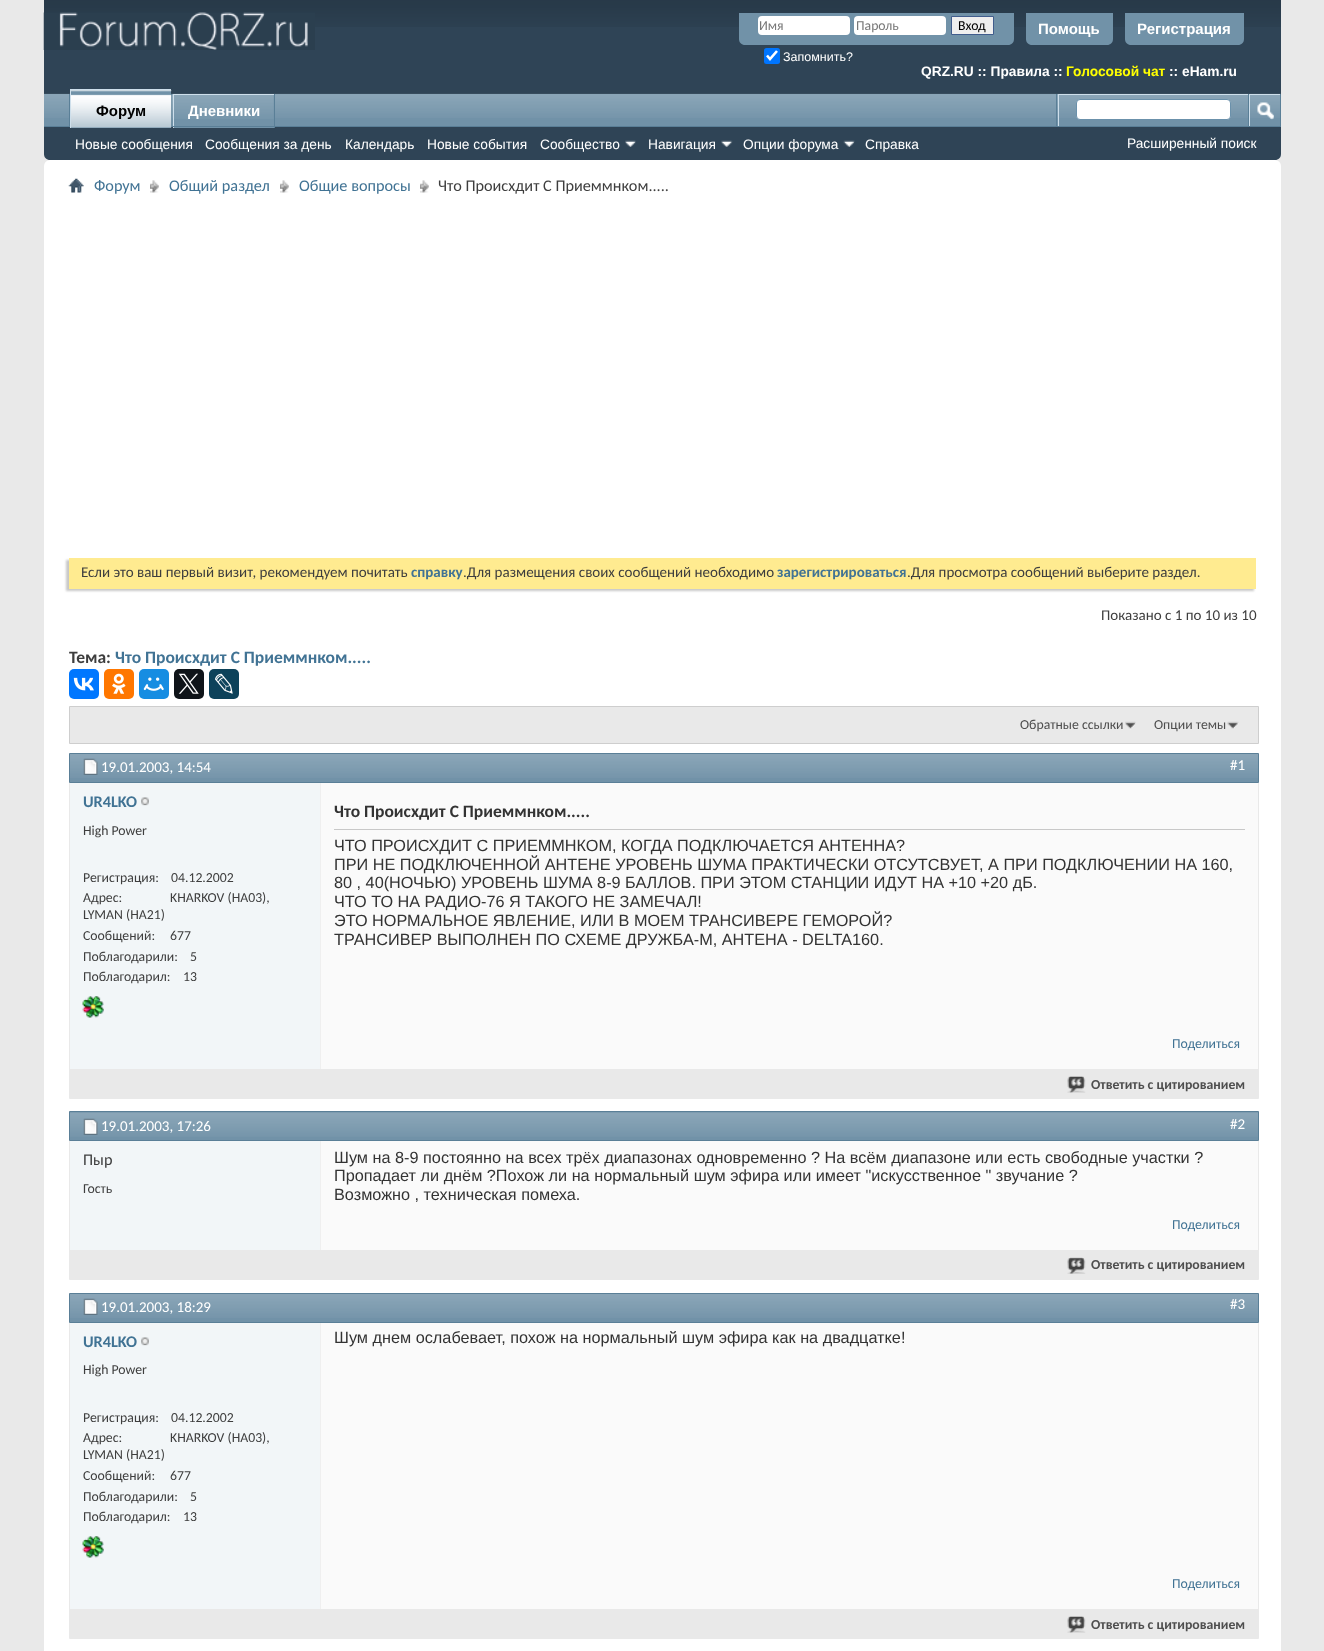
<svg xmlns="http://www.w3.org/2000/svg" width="1324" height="1651">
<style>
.a{font:13.75px Carlito;fill:#777}
.b{font:13.75px Carlito;fill:#000}
.c{font:12.5px Liberation Sans;fill:#fff}
.d{font:bold 15px Liberation Sans;fill:#fff}
.e{font:bold 13.75px Liberation Sans;fill:#fff}
.f{font:bold 13.75px Liberation Sans;fill:#ff0}
.g{font:bold 15px Liberation Sans;fill:#000}
.h{font:13.75px Liberation Sans;fill:#fff}
.i{font:16.25px Carlito;fill:#417394}
.j{font:16.25px Carlito;fill:#3e3e3e}
.k{font:15px Carlito;fill:#3e3e3e}
.l{font:bold 15px Carlito;fill:#417394}
.m{font:bold 17.5px Carlito;fill:#3e3e3e}
.n{font:bold 17.5px Carlito;fill:#417394}
.o{font:13.75px Carlito;fill:#4e4e4e}
.p{font:15px Carlito;fill:#fff}
.q{font:bold 16.25px Carlito;fill:#417394}
.r{font:13.75px Carlito;fill:#3e3e3e}
.s{font:bold 17.5px Carlito;fill:#333}
.t{font:16.25px Liberation Sans;fill:#333}
.u{font:13.75px Carlito;fill:#417394}
.v{font:bold 13.75px Carlito;fill:#4e4e4e}
</style>
<rect width="100%" height="100%" fill="#e9e9e9"/>
<path fill="#2f4456" d="M44 0h1237v154c0 3.5-2.5 6-6 6h-1225c-3.5 0-6-2.5-6-6z"/>
<image href="1.png" x="44" y="0" width="1237" height="27"/>
<image href="2.png" x="43" y="12" width="272" height="38"/>
<path fill="#7192a8" d="M739 13h275v26c0 3.5-2.5 6-6 6h-263c-3.5 0-6-2.5-6-6z"/>
<rect fill="#fff" x="758" y="16" width="92" height="19" rx="4"/>
<rect fill="#fff" x="854" y="16" width="92" height="19" rx="4"/>
<path fill="#efefef" stroke="#415d8d" d="M951.5 16.5h42v18H951.5z"/>
<rect fill="#0075ff" x="764" y="48" width="16" height="16" rx="2.5"/>
<path fill="none" stroke="#fff" stroke-width="2.6" d="M767 55.5l3 3.5l7-8"/>
<path fill="#7192a8" d="M1026 13h87v26c0 3.5-2.5 6-6 6h-75c-3.5 0-6-2.5-6-6z"/>
<path fill="#7192a8" d="M1125 13h119v26c0 3.5-2.5 6-6 6h-107c-3.5 0-6-2.5-6-6z"/>
<path fill="#7192a8" d="M44 94h1236v32H44z"/>
<image href="3.png" x="44" y="93" width="1237" height="25"/>
<path fill="#5a7f97" d="M171 94h1v32H171z"/>
<path fill="#5a7f97" d="M69 94h1v32H69z"/>
<path fill="#5a7f97" d="M274 94h1v34H274z"/>
<path fill="#7192a8" d="M174 95h100v33H174z"/>
<image href="5.png" x="172" y="95" width="102" height="24"/>
<path fill="#cedfeb" d="M173 94h101v1H173z"/>
<path fill="#cedfeb" d="M173 94h1v34H173z"/>
<path fill="#5a7f97" d="M44 126h1237v1H44z"/>
<path fill="#7192a8" d="M71 90h100v38H71z"/>
<image href="4.png" x="71" y="90" width="101" height="38"/>
<path fill="#cedfeb" d="M70 89h101v1H70z"/>
<path fill="#cedfeb" d="M70 89h1v39H70z"/>
<image href="6.png" x="625" y="140" width="11" height="7"/>
<image href="7.png" x="721" y="140" width="12" height="7"/>
<image href="8.png" x="843" y="140" width="12" height="7"/>
<path fill="#5a7f97" d="M1056 94h1v32H1056z"/>
<path fill="#cedfeb" d="M1058 94h190v1H1058z"/>
<path fill="#cedfeb" d="M1058 94h1v32H1058z"/>
<rect fill="#fff" stroke="#6b91ab" x="1076.5" y="99.5" width="154" height="20" rx="3.5"/>
<path fill="#5a7f97" d="M1280 94h1v32H1280z"/>
<path fill="#5a7f97" d="M1248 94h1v32H1248z"/>
<path fill="#cedfeb" d="M1249 94h31v1H1249z"/>
<path fill="#cedfeb" d="M1249 94h1v32H1249z"/>
<image href="9.png" x="1257" y="102" width="17" height="18"/>
<rect fill="#fff" x="44" y="160" width="1237" height="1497" rx="6"/>
<image href="10.png" x="68" y="178" width="16" height="15"/>
<image href="11.png" x="150" y="180" width="9" height="13"/>
<image href="12.png" x="280" y="180" width="9" height="13"/>
<image href="12.png" x="420" y="180" width="9" height="13"/>
<path fill="#c8c8c8" filter="blur(1px)" d="M66 560h1188v31H66z"/>
<path fill="#ffeb90" d="M69 558h1187v31H69z"/>
<rect fill="#07f" x="69" y="669" width="30" height="30" rx="5"/>
<image href="13.png" x="73" y="677" width="21" height="14"/>
<rect fill="#f70" x="104" y="669" width="30" height="30" rx="5"/>
<image href="14.png" x="112" y="673" width="14" height="21"/>
<rect fill="#168de2" x="139" y="669" width="30" height="30" rx="5"/>
<image href="15.png" x="143" y="677" width="21" height="14"/>
<rect fill="#0f1419" x="174" y="669" width="30" height="30" rx="5"/>
<image href="16.png" x="178" y="673" width="21" height="21"/>
<rect fill="#0d425a" x="209" y="669" width="30" height="30" rx="5"/>
<image href="17.png" x="215" y="673" width="18" height="21"/>
<path fill="#e9e9e9" stroke="#cecece" d="M69.5 706.5h1189v37H69.5z"/>
<image href="18.png" x="1125" y="721" width="11" height="9"/>
<image href="19.png" x="1227" y="721" width="12" height="8"/>
<path fill="none" stroke="#e9e9e9" d="M69.5 753.5h1189v345H69.5z"/>
<path fill="#7192a8" d="M70 754h1188v28H70z"/>
<image href="20.png" x="70" y="754" width="1188" height="24"/>
<path fill="none" stroke="#5a7f97" d="M69.5 753.5h1189v29H69.5z"/>
<image href="21.png" x="83" y="758" width="15" height="17"/>
<path fill="#f2f6f8" d="M70 783h250v286H70z"/>
<image href="22.png" x="141" y="797" width="8" height="9"/>
<image href="23.png" x="82" y="996" width="22" height="22"/>
<path fill="#fafafa" d="M321 783h937v286H321z"/>
<path fill="#efefef" d="M320 783h1v286H320z"/>
<path fill="#c8c8c8" d="M334 829h911v1H334z"/>
<path fill="#e9e9e9" d="M70 1069h1188v29H70z"/>
<image href="24.png" x="1067" y="1076" width="19" height="17"/>
<path fill="none" stroke="#e9e9e9" d="M69.5 1111.5h1189v168H69.5z"/>
<path fill="#7192a8" d="M70 1112h1188v28H70z"/>
<image href="25.png" x="70" y="1112" width="1188" height="25"/>
<path fill="none" stroke="#5a7f97" d="M69.5 1111.5h1189v29H69.5z"/>
<image href="26.png" x="83" y="1118" width="15" height="17"/>
<path fill="#f2f6f8" d="M70 1141h250v109H70z"/>
<path fill="#fafafa" d="M321 1141h937v109H321z"/>
<path fill="#efefef" d="M320 1141h1v109H320z"/>
<path fill="#e9e9e9" d="M70 1250h1188v29H70z"/>
<image href="27.png" x="1067" y="1257" width="19" height="17"/>
<path fill="none" stroke="#e9e9e9" d="M69.5 1293.5h1189v345H69.5z"/>
<path fill="#7192a8" d="M70 1294h1188v28H70z"/>
<image href="20.png" x="70" y="1294" width="1188" height="24"/>
<path fill="none" stroke="#5a7f97" d="M69.5 1293.5h1189v29H69.5z"/>
<image href="21.png" x="83" y="1298" width="15" height="17"/>
<path fill="#f2f6f8" d="M70 1323h250v286H70z"/>
<image href="22.png" x="141" y="1337" width="8" height="9"/>
<image href="23.png" x="82" y="1536" width="22" height="22"/>
<path fill="#fafafa" d="M321 1323h937v286H321z"/>
<path fill="#efefef" d="M320 1323h1v286H320z"/>
<path fill="#e9e9e9" d="M70 1609h1188v29H70z"/>
<image href="24.png" x="1067" y="1616" width="19" height="17"/>
<text class="a" x="759" y="30">Имя</text>
<text class="a" x="856" y="30">Пароль</text>
<text class="b" x="958" y="30">Вход</text>
<text class="c" x="783" y="61">Запомнить?</text>
<text class="d" x="1038" y="34">Помощь</text>
<text class="d" x="1137" y="34">Регистрация</text>
<text class="e" x="921" y="76">QRZ.RU :: Правила ::</text>
<text class="f" x="1066" y="76">Голосовой чат</text>
<text class="e" x="1169" y="76">:: eHam.ru</text>
<text class="g" x="96" y="116">Форум</text>
<text class="d" x="188" y="116">Дневники</text>
<text class="h" x="75" y="149">Новые сообщения</text>
<text class="h" x="205" y="149">Сообщения за день</text>
<text class="h" x="345" y="149">Календарь</text>
<text class="h" x="427" y="149">Новые события</text>
<text class="h" x="540" y="149">Сообщество</text>
<text class="h" x="648" y="149">Навигация</text>
<text class="h" x="743" y="149">Опции форума</text>
<text class="h" x="865" y="149">Справка</text>
<text class="h" x="1127" y="148">Расширенный поиск</text>
<text class="i" x="94" y="191">Форум</text>
<text class="i" x="169" y="191">Общий раздел</text>
<text class="i" x="299" y="191">Общие вопросы</text>
<text class="j" x="438" y="191">Что Происхдит С Приеммнком.....</text>
<text class="k" x="81" y="577">Если это ваш первый визит, рекомендуем почитать</text>
<text class="l" x="411" y="577">справку</text>
<text class="k" x="463" y="577">.Для размещения своих сообщений необходимо</text>
<text class="l" x="777" y="577">зарегистрироваться</text>
<text class="k" x="907" y="577">.Для просмотра сообщений выберите раздел.</text>
<text class="k" x="1101" y="620">Показано с 1 по 10 из 10</text>
<text class="m" x="69" y="663">Тема:</text>
<text class="n" x="115" y="663">Что Происхдит С Приеммнком.....</text>
<text class="o" x="1020" y="729">Обратные ссылки</text>
<text class="o" x="1154" y="729">Опции темы</text>
<text class="p" x="101" y="772">19.01.2003, 14:54</text>
<text class="p" x="1230" y="770">#1</text>
<text class="q" x="83" y="807">UR4LKO</text>
<text class="r" x="83" y="835">High Power</text>
<text class="r" x="83" y="882">Регистрация:</text>
<text class="r" x="171" y="882">04.12.2002</text>
<text class="r" x="170" y="902">KHARKOV (HA03),</text>
<text class="r" x="83" y="919">LYMAN (HA21)</text>
<text class="r" x="83" y="902">Адрес:</text>
<text class="r" x="83" y="940">Сообщений:</text>
<text class="r" x="170" y="940">677</text>
<text class="r" x="83" y="961">Поблагодарили:</text>
<text class="r" x="190" y="961">5</text>
<text class="r" x="83" y="981">Поблагодарил:</text>
<text class="r" x="183" y="981">13</text>
<text class="s" x="334" y="817">Что Происхдит С Приеммнком.....</text>
<text class="t" x="334" y="851">ЧТО ПРОИСХДИТ С ПРИЕММНКОМ, КОГДА ПОДКЛЮЧАЕТСЯ АНТЕННА?</text>
<text class="t" x="334" y="870">ПРИ НЕ ПОДКЛЮЧЕННОЙ АНТЕНЕ УРОВЕНЬ ШУМА ПРАКТИЧЕСКИ ОТСУТСВУЕТ, А ПРИ ПОДКЛЮЧЕНИИ НА 160,</text>
<text class="t" x="334" y="888">80 , 40(НОЧЬЮ) УРОВЕНЬ ШУМА 8-9 БАЛЛОВ. ПРИ ЭТОМ СТАНЦИИ ИДУТ НА +10 +20 дБ.</text>
<text class="t" x="334" y="907">ЧТО ТО НА РАДИО-76 Я ТАКОГО НЕ ЗАМЕЧАЛ!</text>
<text class="t" x="334" y="926">ЭТО НОРМАЛЬНОЕ ЯВЛЕНИЕ, ИЛИ В МОЕМ ТРАНСИВЕРЕ ГЕМОРОЙ?</text>
<text class="t" x="334" y="945">ТРАНСИВЕР ВЫПОЛНЕН ПО СХЕМЕ ДРУЖБА-М, АНТЕНА - DELTA160.</text>
<text class="u" x="1172" y="1048">Поделиться</text>
<text class="v" x="1091" y="1089">Ответить с цитированием</text>
<text class="p" x="101" y="1131">19.01.2003, 17:26</text>
<text class="p" x="1230" y="1129">#2</text>
<text class="j" x="83" y="1165">Пыр</text>
<text class="r" x="83" y="1193">Гость</text>
<text class="t" x="334" y="1163">Шум на 8-9 постоянно на всех трёх диапазонах одновременно ? На всём диапазоне или есть свободные участки ?</text>
<text class="t" x="334" y="1181">Пропадает ли днём ?Похож ли на нормальный шум эфира или имеет "искусственное " звучание ?</text>
<text class="t" x="334" y="1200">Возможно , техническая помеха.</text>
<text class="u" x="1172" y="1229">Поделиться</text>
<text class="v" x="1091" y="1269">Ответить с цитированием</text>
<text class="p" x="101" y="1312">19.01.2003, 18:29</text>
<text class="p" x="1230" y="1309">#3</text>
<text class="q" x="83" y="1347">UR4LKO</text>
<text class="r" x="83" y="1374">High Power</text>
<text class="r" x="83" y="1422">Регистрация:</text>
<text class="r" x="171" y="1422">04.12.2002</text>
<text class="r" x="170" y="1442">KHARKOV (HA03),</text>
<text class="r" x="83" y="1459">LYMAN (HA21)</text>
<text class="r" x="83" y="1442">Адрес:</text>
<text class="r" x="83" y="1480">Сообщений:</text>
<text class="r" x="170" y="1480">677</text>
<text class="r" x="83" y="1501">Поблагодарили:</text>
<text class="r" x="190" y="1501">5</text>
<text class="r" x="83" y="1521">Поблагодарил:</text>
<text class="r" x="183" y="1521">13</text>
<text class="t" x="334" y="1343">Шум днем ослабевает, похож на нормальный шум эфира как на двадцатке!</text>
<text class="u" x="1172" y="1588">Поделиться</text>
<text class="v" x="1091" y="1629">Ответить с цитированием</text>
</svg>
